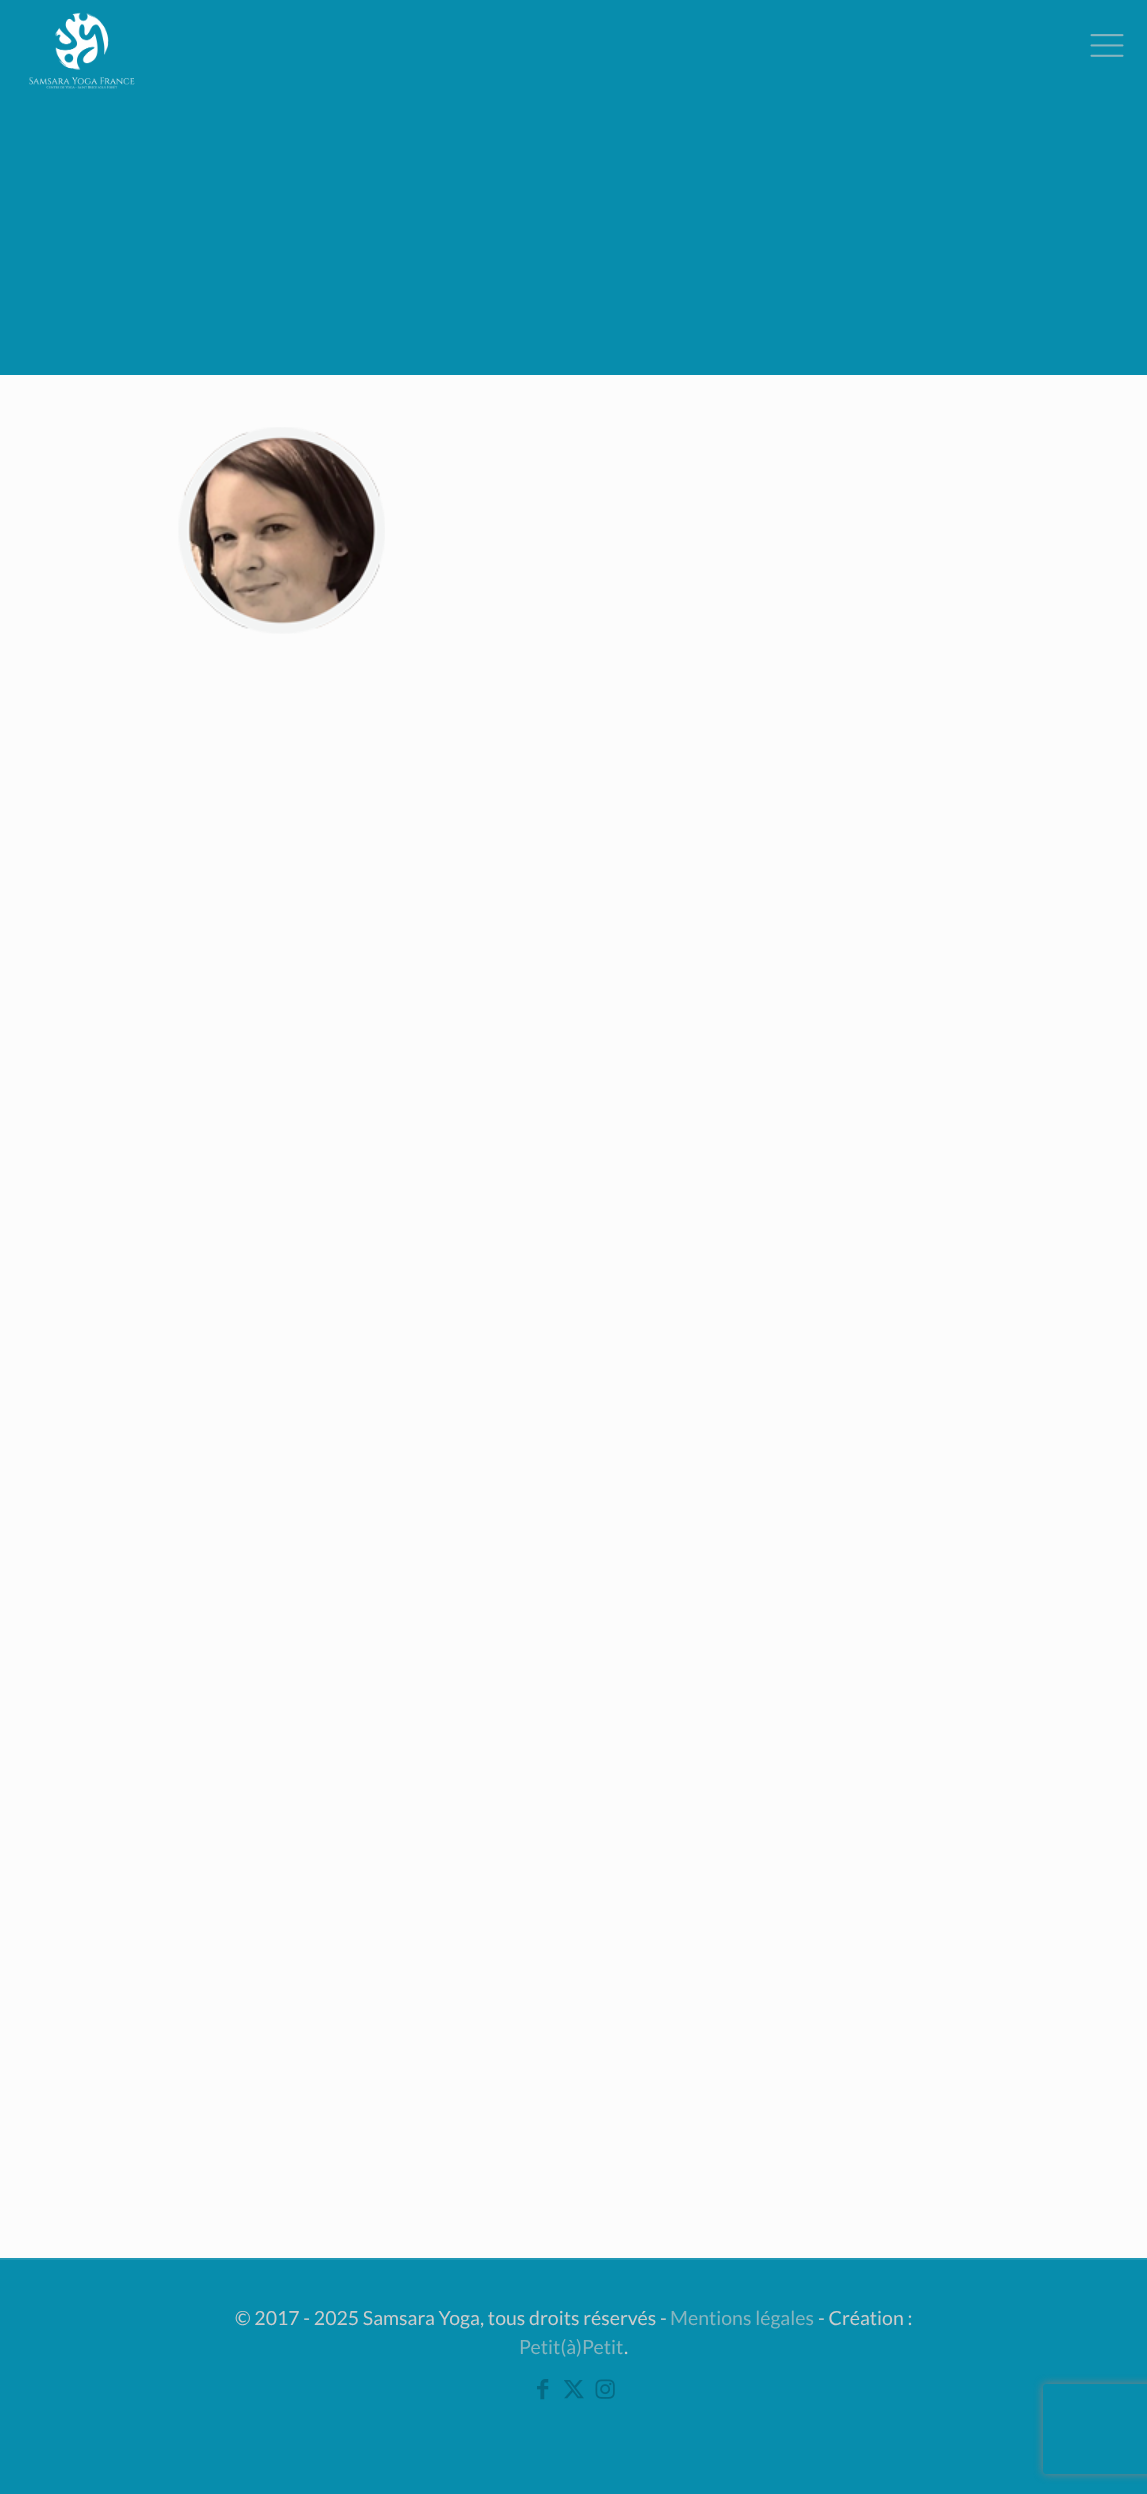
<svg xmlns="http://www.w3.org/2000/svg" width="1147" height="2494">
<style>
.a{font:19.5px Lato;fill:#ccc}
.b{font:19.5px Lato;fill:#88b5bf}
</style>
<defs>
<clipPath id="clip1"><path d="M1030 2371h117v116h-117zm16 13h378c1.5 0 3 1.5 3 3v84c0 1.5-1.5 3-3 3h-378c-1.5 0-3-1.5-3-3v-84c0-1.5 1.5-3 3-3z" clip-rule="evenodd"/></clipPath>
</defs>
<rect width="100%" height="100%" fill="#fcfcfc"/>
<path fill="#078dad" d="M0 0h1147v375H0z"/>
<image href="1.png" x="29" y="12" width="106" height="77"/>
<image href="2.png" x="1090" y="34" width="34" height="23"/>
<image href="3.png" x="178" y="427" width="207" height="207"/>
<path fill="#078dad" d="M0 2260h1147v234H0z"/>
<path fill="#2098b5" d="M0 2258h1147v2H0z"/>
<image href="4.png" x="537" y="2379" width="12" height="21"/>
<image href="5.png" x="564" y="2380" width="20" height="19"/>
<image href="6.png" x="595" y="2379" width="20" height="20"/>
<g clip-path="url(#clip1)">
<rect fill="#808080" filter="blur(4px)" x="1043" y="2384" width="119" height="90" rx="3"/>
</g>
<text class="a" x="235" y="2325">© 2017 - 2025 Samsara Yoga, tous droits réservés -</text>
<text class="b" x="670" y="2325">Mentions légales</text>
<text class="a" x="818" y="2325">- Création :</text>
<text class="b" x="519" y="2354">Petit(à)Petit</text>
<text class="a" x="624" y="2354">.</text>
</svg>
